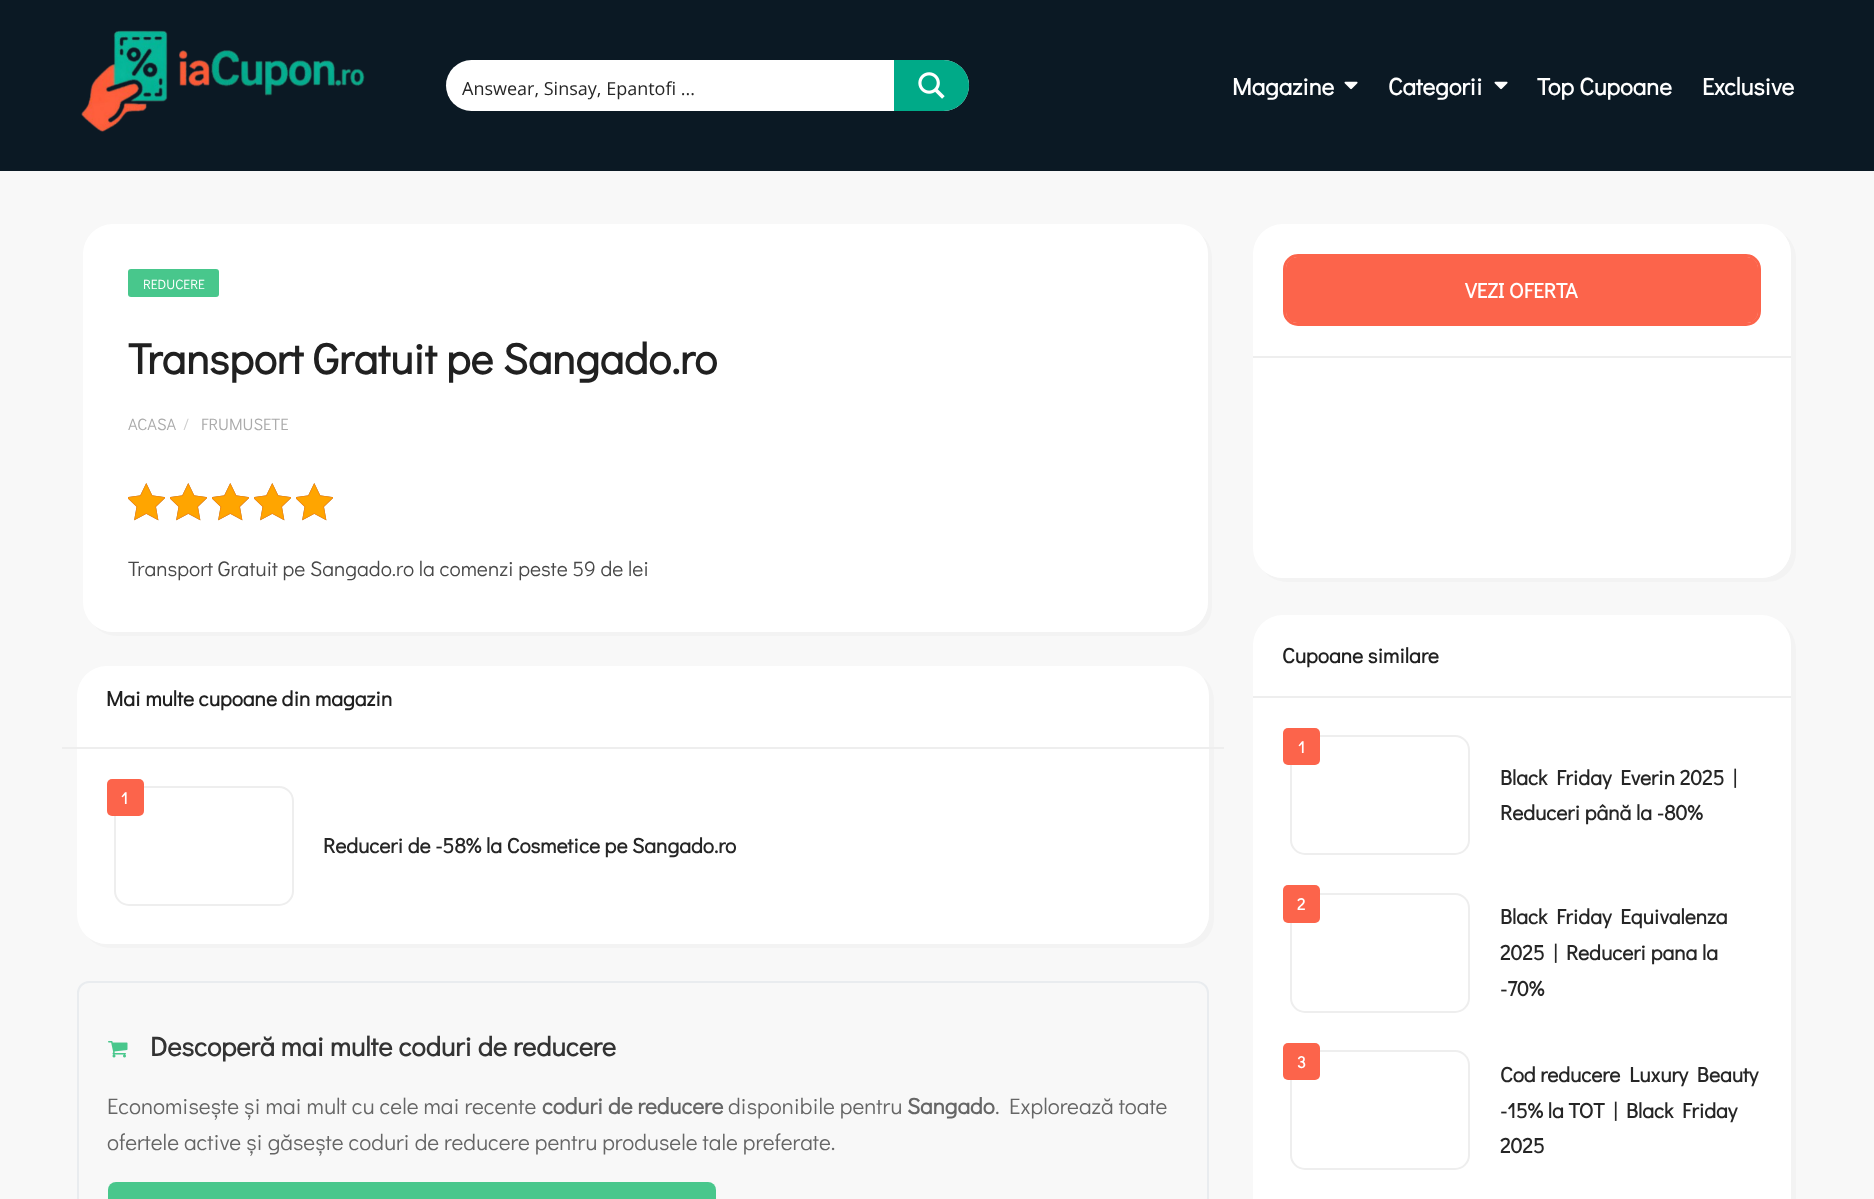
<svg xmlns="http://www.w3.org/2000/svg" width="1874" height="1199">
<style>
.a{font:18px Open Sans;fill:#262626}
.b{font:bold 24px Didact Gothic;fill:#fff}
.c{font:13.5px Didact Gothic;fill:#fff}
.d{font:bold 43.25px Didact Gothic;fill:#202020}
.e{font:16.5px Didact Gothic;fill:#aaa}
.f{font:16.5px Didact Gothic;fill:#ccc}
.g{font:21px Didact Gothic;fill:#484848}
.h{font:bold 21px Didact Gothic;fill:#202020}
.i{font:bold 16.5px Didact Gothic;fill:#fff}
.j{font:bold 21px Didact Gothic;fill:#262626}
.k{font:bold 27px Didact Gothic;fill:#333}
.l{font:22.5px Didact Gothic;fill:#666}
.m{font:bold 22.5px Didact Gothic;fill:#666}
.n{font:bold 21px Didact Gothic;fill:#fff}
</style>
<rect width="100%" height="100%" fill="#f8f8f8"/>
<path fill="#0b1924" d="M0 0h1874v171H0z"/>
<image href="1.png" x="81" y="30" width="284" height="102"/>
<rect fill="#fff" x="446" y="60" width="523" height="51" rx="25.5"/>
<path fill="#0a8" d="M894 60h49.5c14 0 25.5 11.5 25.5 25.5c0 14-11.5 25.5-25.5 25.5h-49.5z"/>
<image href="2.png" x="918" y="72" width="27" height="27"/>
<image href="3.png" x="1344" y="81" width="14" height="9"/>
<image href="3.png" x="1494" y="81" width="14" height="9"/>
<path fill="#f3f3f3" d="M94 625c5 7 14 11 23 11h1065c17 0 30-13 30-30v-348c0-9-4-18-11-23c4 5 7 11 7 19v348c0 16-14 30-30 30h-1066c-7 0-13-3-18-7z"/>
<rect fill="#fff" x="83" y="224" width="1125" height="408" rx="30"/>
<rect fill="#48c78c" x="128" y="269" width="91" height="28" rx="3"/>
<image href="4.png" x="128" y="483" width="37" height="38"/>
<image href="4.png" x="170" y="483" width="37" height="38"/>
<image href="4.png" x="212" y="483" width="37" height="38"/>
<image href="4.png" x="254" y="483" width="37" height="38"/>
<image href="4.png" x="296" y="483" width="37" height="38"/>
<image href="5.png" x="128" y="483" width="37" height="38"/>
<image href="5.png" x="170" y="483" width="37" height="38"/>
<image href="5.png" x="212" y="483" width="37" height="38"/>
<image href="5.png" x="254" y="483" width="37" height="38"/>
<image href="5.png" x="296" y="483" width="37" height="38"/>
<path fill="#f3f3f3" d="M88 937c5 7 14 11 23 11h1073c17 0 30-13 30-30v-217c0-10-4-18-11-24c4 6 6 12 6 19v218c0 16-13 30-30 30h-1073c-7 0-13-3-18-7z"/>
<rect fill="#fff" x="77" y="666" width="1132" height="278" rx="30"/>
<path fill="#eee" d="M62 747h1162v2H62z"/>
<rect fill="none" stroke="#eee" stroke-width="2" x="115" y="787" width="178" height="118" rx="14"/>
<rect fill="#fc644b" x="107" y="779" width="37" height="37" rx="5"/>
<rect fill="none" stroke="#e9ecef" stroke-width="2" x="78" y="982" width="1130" height="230" rx="11"/>
<image href="6.png" x="108" y="1041" width="20" height="17"/>
<rect fill="#48c78c" x="108" y="1182" width="608" height="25" rx="8"/>
<path fill="#f3f3f3" d="M1264 571c5 7 14 11 23 11h479c17 0 30-13 30-30v-294c0-10-5-19-13-24c5 5 8 12 8 20v294c0 16-13 30-30 30h-479c-7 0-13-3-18-7z"/>
<rect fill="#fff" x="1253" y="224" width="538" height="354" rx="30"/>
<path fill="#eee" d="M1253 356h538v2H1253z"/>
<rect fill="none" stroke="#fc644b" stroke-width="3" x="1284.5" y="255.5" width="475" height="69" rx="13.5"/>
<rect fill="#fc644b" x="1286" y="257" width="472" height="66" rx="11"/>
<path fill="#f3f3f3" d="M1264 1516c5 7 14 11 23 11h479c17 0 30-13 30-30v-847c0-10-4-18-11-24c4 6 6 12 6 19v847c0 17-13 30-30 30h-479c-7 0-13-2-18-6z"/>
<rect fill="#fff" x="1253" y="615" width="538" height="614" rx="30"/>
<path fill="#eee" d="M1253 696h538v2H1253z"/>
<rect fill="none" stroke="#eee" stroke-width="2" x="1291" y="736" width="178" height="118" rx="14"/>
<rect fill="#fc644b" x="1283" y="728" width="37" height="37" rx="5"/>
<rect fill="none" stroke="#eee" stroke-width="2" x="1291" y="894" width="178" height="118" rx="14"/>
<rect fill="#fc644b" x="1283" y="885" width="37" height="38" rx="5"/>
<rect fill="none" stroke="#eee" stroke-width="2" x="1291" y="1051" width="178" height="118" rx="14"/>
<rect fill="#fc644b" x="1283" y="1043" width="37" height="37" rx="5"/>
<text class="a" x="462" y="95">Answear, Sinsay, Epantofi ...</text>
<text class="b" x="1232" y="95">Magazine</text>
<text class="b" x="1388" y="95">Categorii</text>
<text class="b" x="1537" y="95">Top Cupoane</text>
<text class="b" x="1702" y="95">Exclusive</text>
<text class="c" x="143" y="289">REDUCERE</text>
<text class="d" x="128" y="374">Transport Gratuit pe Sangado.ro</text>
<text class="e" x="128" y="430">ACASA</text>
<text class="f" x="183" y="430">/</text>
<text class="e" x="201" y="430">FRUMUSETE</text>
<text class="g" x="128" y="576">Transport Gratuit pe Sangado.ro la comenzi peste 59 de lei</text>
<text class="h" x="106" y="706">Mai multe cupoane din magazin</text>
<text class="i" x="121" y="804">1</text>
<text class="j" x="323" y="853">Reduceri de -58% la Cosmetice pe Sangado.ro</text>
<text class="k" x="150" y="1056">Descoperă mai multe coduri de reducere</text>
<text class="l" x="107" y="1114">Economisește și mai mult cu cele mai recente</text>
<text class="m" x="542" y="1114">coduri de reducere</text>
<text class="l" x="728" y="1114">disponibile pentru</text>
<text class="m" x="907" y="1114">Sangado</text>
<text class="l" x="995" y="1114">. Explorează toate</text>
<text class="l" x="107" y="1150">ofertele active și găsește coduri de reducere pentru produsele tale preferate.</text>
<text class="n" x="1465" y="298">VEZI OFERTA</text>
<text class="h" x="1282" y="663">Cupoane similare</text>
<text class="i" x="1298" y="753">1</text>
<text class="j" x="1500" y="785">Black Friday Everin 2025 |</text>
<text class="j" x="1500" y="820">Reduceri până la -80%</text>
<text class="i" x="1297" y="910">2</text>
<text class="j" x="1500" y="924">Black Friday Equivalenza</text>
<text class="j" x="1500" y="960">2025 | Reduceri pana la</text>
<text class="j" x="1500" y="996">-70%</text>
<text class="i" x="1297" y="1068">3</text>
<text class="j" x="1500" y="1082">Cod reducere Luxury Beauty</text>
<text class="j" x="1500" y="1118">-15% la TOT | Black Friday</text>
<text class="j" x="1500" y="1153">2025</text>
</svg>
